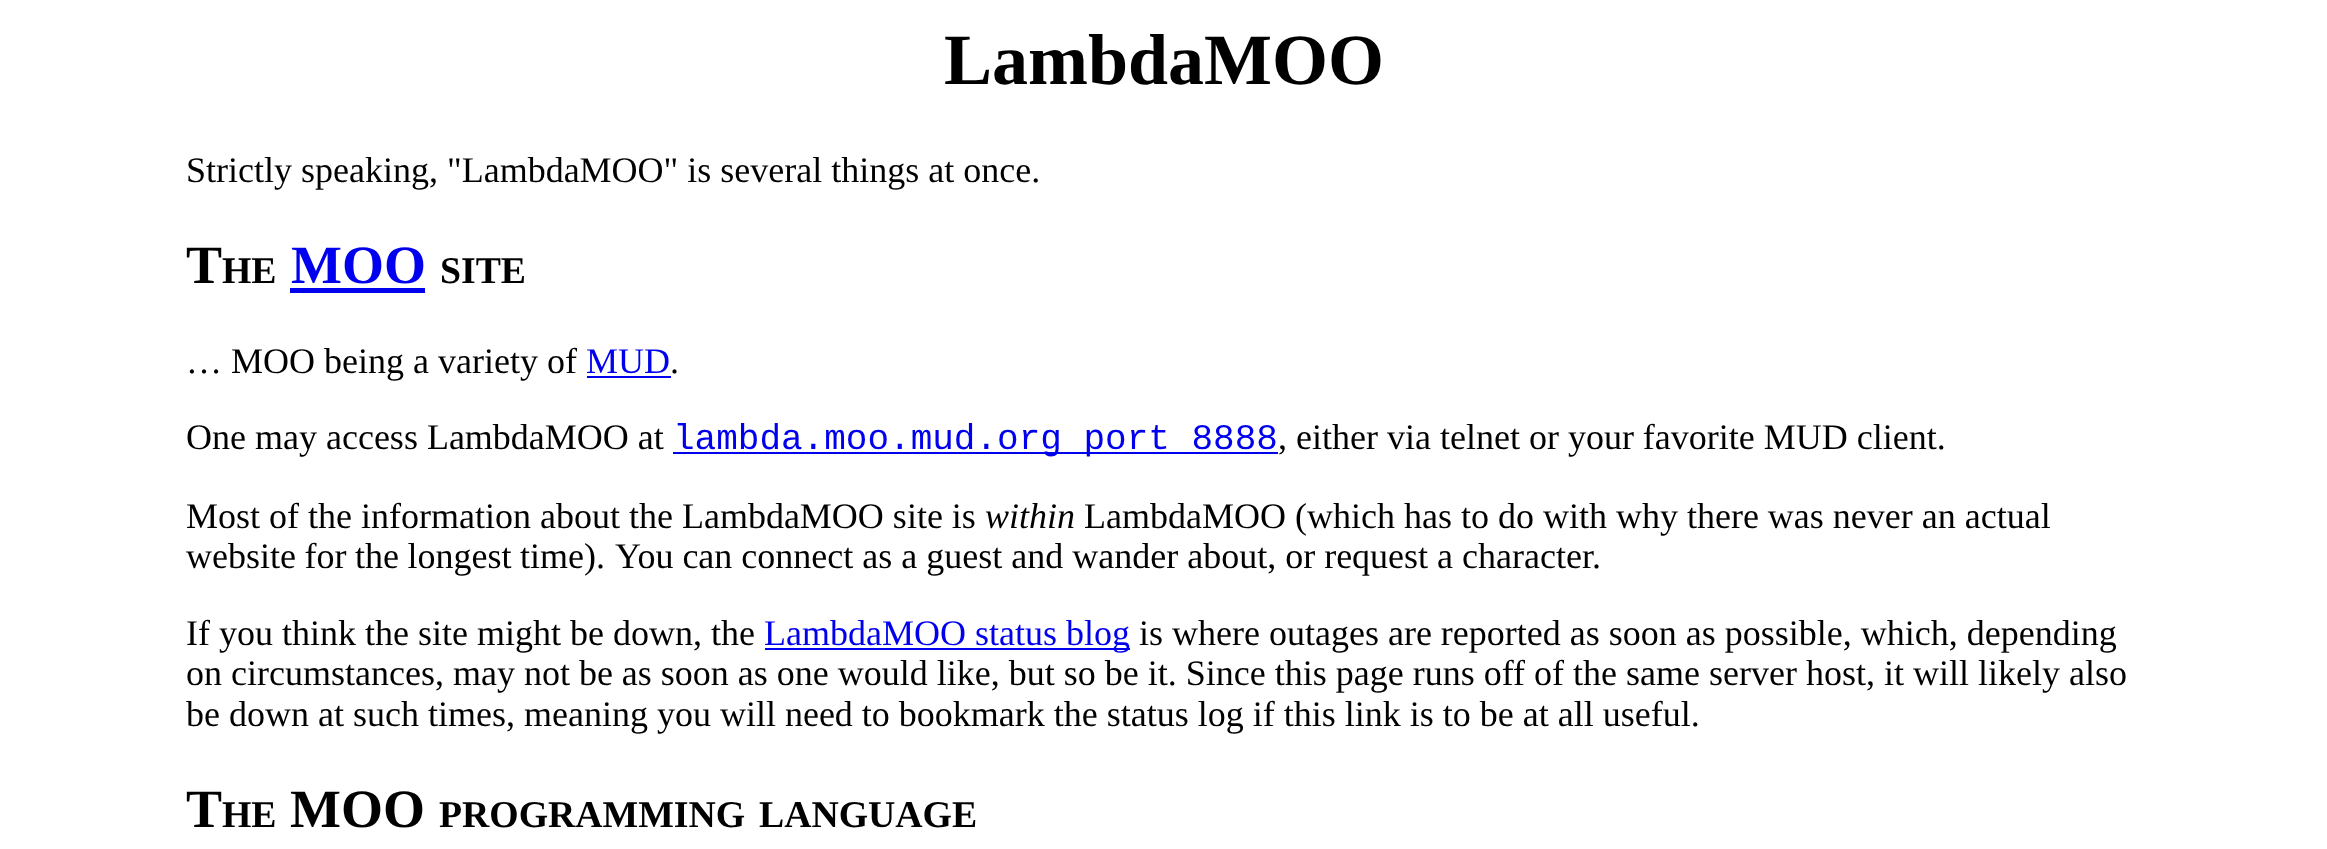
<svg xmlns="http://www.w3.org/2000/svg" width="2327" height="849">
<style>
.a{font:bold 72px Liberation Serif;fill:#000}
.b{font:36px Liberation Serif;fill:#000}
.c{font:bold 54px Liberation Serif;fill:#000}
.d{font:bold 37.75px Liberation Serif;fill:#000}
.e{font:bold 54px Liberation Serif;fill:#00e}
.f{font:36px Liberation Serif;fill:#00e}
.g{font:36px Liberation Mono;fill:#00e}
.h{font:italic 36px Liberation Serif;fill:#000}
</style>
<rect width="100%" height="100%" fill="#fff"/>
<path fill="#00e" d="M290 288h135v5H290z"/>
<path fill="#00e" d="M587 376h84v2H587z"/>
<path fill="#00e" d="M673 452h605v2H673z"/>
<path fill="#00e" d="M765 648h365v2H765z"/>
<text class="a" x="944" y="84">LambdaMOO</text>
<text class="b" x="186" y="182">Strictly speaking, "LambdaMOO" is several things at once.</text>
<text class="c" x="186" y="283">T</text>
<text class="d" x="222" y="283">HE</text>
<text class="e" x="291" y="283">MOO</text>
<text class="d" x="440" y="283">SITE</text>
<text class="b" x="186" y="373">… MOO being a variety of</text>
<text class="f" x="586" y="373">MUD</text>
<text class="b" x="670" y="373">.</text>
<text class="b" x="186" y="449">One may access LambdaMOO at</text>
<text class="g" x="673" y="449">lambda.moo.mud.org port 8888</text>
<text class="b" x="1278" y="449">, either via telnet or your favorite MUD client.</text>
<text class="b" x="186" y="528">Most of the information about the LambdaMOO site is</text>
<text class="h" x="985" y="528">within</text>
<text class="b" x="1084" y="528">LambdaMOO (which has to do with why there was never an actual</text>
<text class="b" x="186" y="568" word-spacing="-0.5">website for the longest time).</text>
<text class="b" x="615" y="568">You can connect as a guest and wander about, or request a character.</text>
<text class="b" x="186" y="645">If you think the site might be down, the</text>
<text class="f" x="764" y="645">LambdaMOO status blog</text>
<text class="b" x="1139" y="645">is where outages are reported as soon as possible, which, depending</text>
<text class="b" x="186" y="685">on circumstances, may not be as soon as one would like, but so be it. Since this page runs off of the same server host, it will likely also</text>
<text class="b" x="186" y="726">be down at such times, meaning you will need to bookmark the status log if this link is to be at all useful.</text>
<text class="c" x="186" y="827">T</text>
<text class="d" x="222" y="827">HE</text>
<text class="c" x="290" y="827">MOO</text>
<text class="d" x="439" y="827">PROGRAMMING</text>
<text class="d" x="759" y="827">LANGUAGE</text>
</svg>
